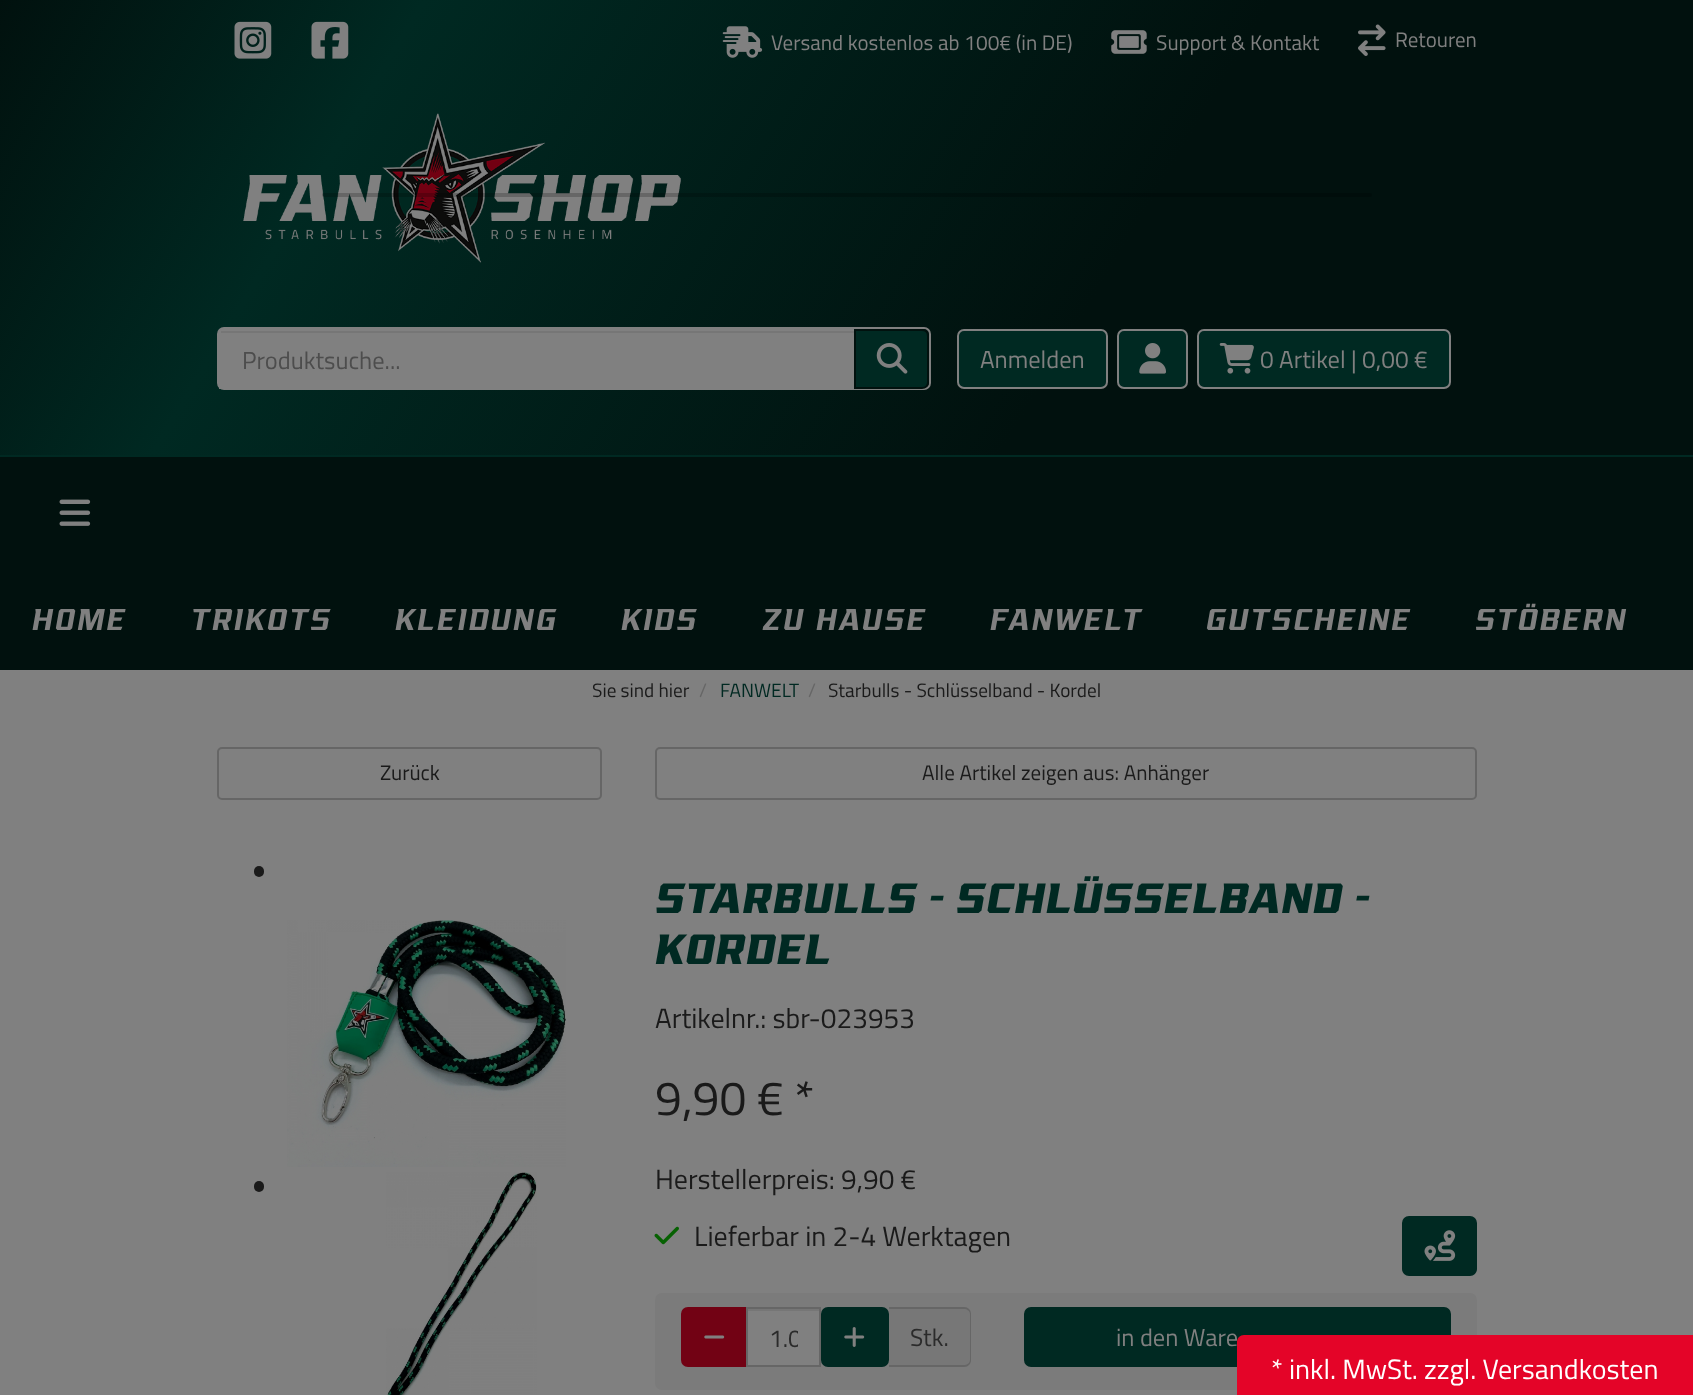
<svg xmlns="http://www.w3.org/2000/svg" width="1693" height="1395">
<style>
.a{font:21px Titillium Web;fill:#808080}
.b{font:24.5px Titillium Web;fill:#4d4d4d}
.c{font:24.5px Titillium Web;fill:#808080}
.d{font:500 28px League;letter-spacing:1.75px;fill:#808080}
.e{font:19.25px Titillium Web;fill:#1a1a1a}
.f{font:19.25px Titillium Web;fill:#666}
.g{font:19.25px Titillium Web;fill:#002922}
.h{font:21px Titillium Web;fill:#1a1a1a}
.i{font:bold 39.25px League;fill:#002922}
.j{font:28px Titillium Web;fill:#1a1a1a}
.k{font:48px Titillium Web;fill:#1a1a1a}
.l{font:24.5px Titillium Web;fill:#2b2b2b}
.m{font:28px Titillium Web;fill:#fff}
</style>
<defs>
<linearGradient id="g1" gradientUnits="userSpaceOnUse" x1="67" y1="-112" x2="1627" y2="825"><stop offset="0" stop-color="#01110e"/><stop offset="0.2" stop-color="#002922"/><stop offset="0.6" stop-color="#01110e"/></linearGradient>
<clipPath id="clip1"><path d="M768 1320h30v36H768z"/></clipPath>
</defs>
<rect width="100%" height="100%" fill="#808080"/>
<path fill="url(#g1)" d="M0 0h1693v455H0z"/>
<image href="1.png" x="234" y="21" width="38" height="38"/>
<image href="2.png" x="311" y="21" width="38" height="38"/>
<image href="3.png" x="722" y="26" width="41" height="32"/>
<image href="4.png" x="1111" y="30" width="36" height="24"/>
<image href="5.png" x="1358" y="24" width="28" height="32"/>
<image href="6.png" x="243" y="113" width="438" height="150"/>
<rect fill="none" stroke="#808080" stroke-width="2" x="218" y="328" width="712" height="61" rx="6"/>
<path fill="#808080" d="M219 329h635v60H219z"/>
<path fill="#767676" d="M221 331h633v2H221z"/>
<path fill="#002922" stroke="#01110e" stroke-width="2" d="M855 330h67c3.5 0 6 2.5 6 6v46c0 3.5-2.5 6-6 6h-67z"/>
<image href="7.png" x="876" y="343" width="32" height="31"/>
<rect fill="#002922" stroke="#808080" stroke-width="2" x="958" y="330" width="149" height="58" rx="6"/>
<rect fill="#002922" stroke="#808080" stroke-width="2" x="1118" y="330" width="69" height="58" rx="6"/>
<image href="8.png" x="1139" y="343" width="27" height="31"/>
<rect fill="#002922" stroke="#808080" stroke-width="2" x="1198" y="330" width="252" height="58" rx="6"/>
<image href="9.png" x="1219" y="343" width="35" height="31"/>
<path fill="#01110e" d="M0 457h1693v213H0z"/>
<path fill="#002922" d="M0 455h1693v2H0z"/>
<image href="10.png" x="59" y="499" width="32" height="27"/>
<rect fill="none" stroke="#666" stroke-width="2" x="218" y="748" width="383" height="51" rx="4"/>
<rect fill="none" stroke="#666" stroke-width="2" x="656" y="748" width="820" height="51" rx="4"/>
<rect fill="#1a1a1a" x="254" y="866" width="10" height="11" rx="5"/>
<image href="11.png" x="287" y="920" width="279" height="247"/>
<rect fill="#1a1a1a" x="254" y="1181" width="10" height="11" rx="5"/>
<image href="12.png" x="386" y="1172" width="151" height="223"/>
<image href="13.png" x="654" y="1226" width="25" height="19"/>
<rect fill="#002922" stroke="#002922" stroke-width="2" x="1403" y="1217" width="73" height="58" rx="6"/>
<image href="14.png" x="1424" y="1230" width="32" height="31"/>
<rect fill="#7b7b7b" x="655" y="1293" width="822" height="97" rx="7"/>
<path fill="#720214" stroke="#720214" stroke-width="2" d="M688 1308h58v58h-58c-3.5 0-6-2.5-6-6v-46c0-3.5 2.5-6 6-6z"/>
<image href="15.png" x="704" y="1335" width="21" height="4"/>
<path fill="#808080" d="M748 1311h71v54H748z"/>
<path fill="#767676" d="M747 1309h72v2H747z"/>
<path fill="none" stroke="#666" stroke-width="2" d="M747 1308h73v58H747z"/>
<rect fill="#002922" stroke="#002922" stroke-width="2" x="822" y="1308" width="66" height="58" rx="6"/>
<image href="16.png" x="844" y="1327" width="21" height="20"/>
<path fill="#777" d="M889 1307h75c4 0 7 3 7 7v46c0 4-3 7-7 7h-75z"/>
<path fill="#666" fill-rule="evenodd" d="M889 1307h75c4 0 7 3 7 7v46c0 4-3 7-7 7h-75zm0 2h75c3 0 6 2 6 5v46c0 3-3 5-6 5h-75z"/>
<rect fill="#002922" stroke="#002922" stroke-width="2" x="1025" y="1308" width="425" height="58" rx="6"/>
<rect fill="#00000033" x="322" y="193" width="1050" height="4" rx="2"/>
<path fill="#e40428" d="M1244 1335h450v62h-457v-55c0-4 3-7 7-7z"/>
<text class="a" x="771" y="50">Versand kostenlos ab 100€ (in DE)</text>
<text class="a" x="1156" y="50">Support &amp; Kontakt</text>
<text class="a" x="1395" y="47">Retouren</text>
<text class="b" x="242" y="369">Produktsuche...</text>
<text class="c" x="980" y="368">Anmelden</text>
<text class="c" x="1260" y="368">0 Artikel | 0,00 €</text>
<text class="d" x="32" y="630">Home</text>
<text class="d" x="190" y="630">TRIKOTS</text>
<text class="d" x="395" y="630">KLEIDUNG</text>
<text class="d" x="621" y="630">KIDS</text>
<text class="d" x="762" y="630">ZU HAUSE</text>
<text class="d" x="990" y="630">FANWELT</text>
<text class="d" x="1206" y="630">GUTSCHEINE</text>
<text class="d" x="1475" y="630">Stöbern</text>
<text class="e" x="592" y="697">Sie sind hier</text>
<text class="f" x="699" y="697">/</text>
<text class="g" x="720" y="697">FANWELT</text>
<text class="f" x="808" y="697">/</text>
<text class="e" x="828" y="697">Starbulls - Schlüsselband - Kordel</text>
<text class="h" x="380" y="780">Zurück</text>
<text class="h" x="922" y="780">Alle Artikel zeigen aus: Anhänger</text>
<text class="i" x="655" y="913">Starbulls - Schlüsselband -</text>
<text class="i" x="655" y="964">Kordel</text>
<text class="j" x="655" y="1028">Artikelnr.: sbr-023953</text>
<text class="k" x="655" y="1115">9,90 € *</text>
<text class="j" x="655" y="1189">Herstellerpreis: 9,90 €</text>
<text class="j" x="694" y="1246">Lieferbar in 2-4 Werktagen</text>
<g clip-path="url(#clip1)">
<text class="l" x="769" y="1347">1.0</text>
</g>
<text class="l" x="910" y="1346">Stk.</text>
<text class="c" x="1116" y="1346">in den Ware</text>
<text class="m" x="1271" y="1379">* inkl. MwSt. zzgl. Versandkosten</text>
</svg>
